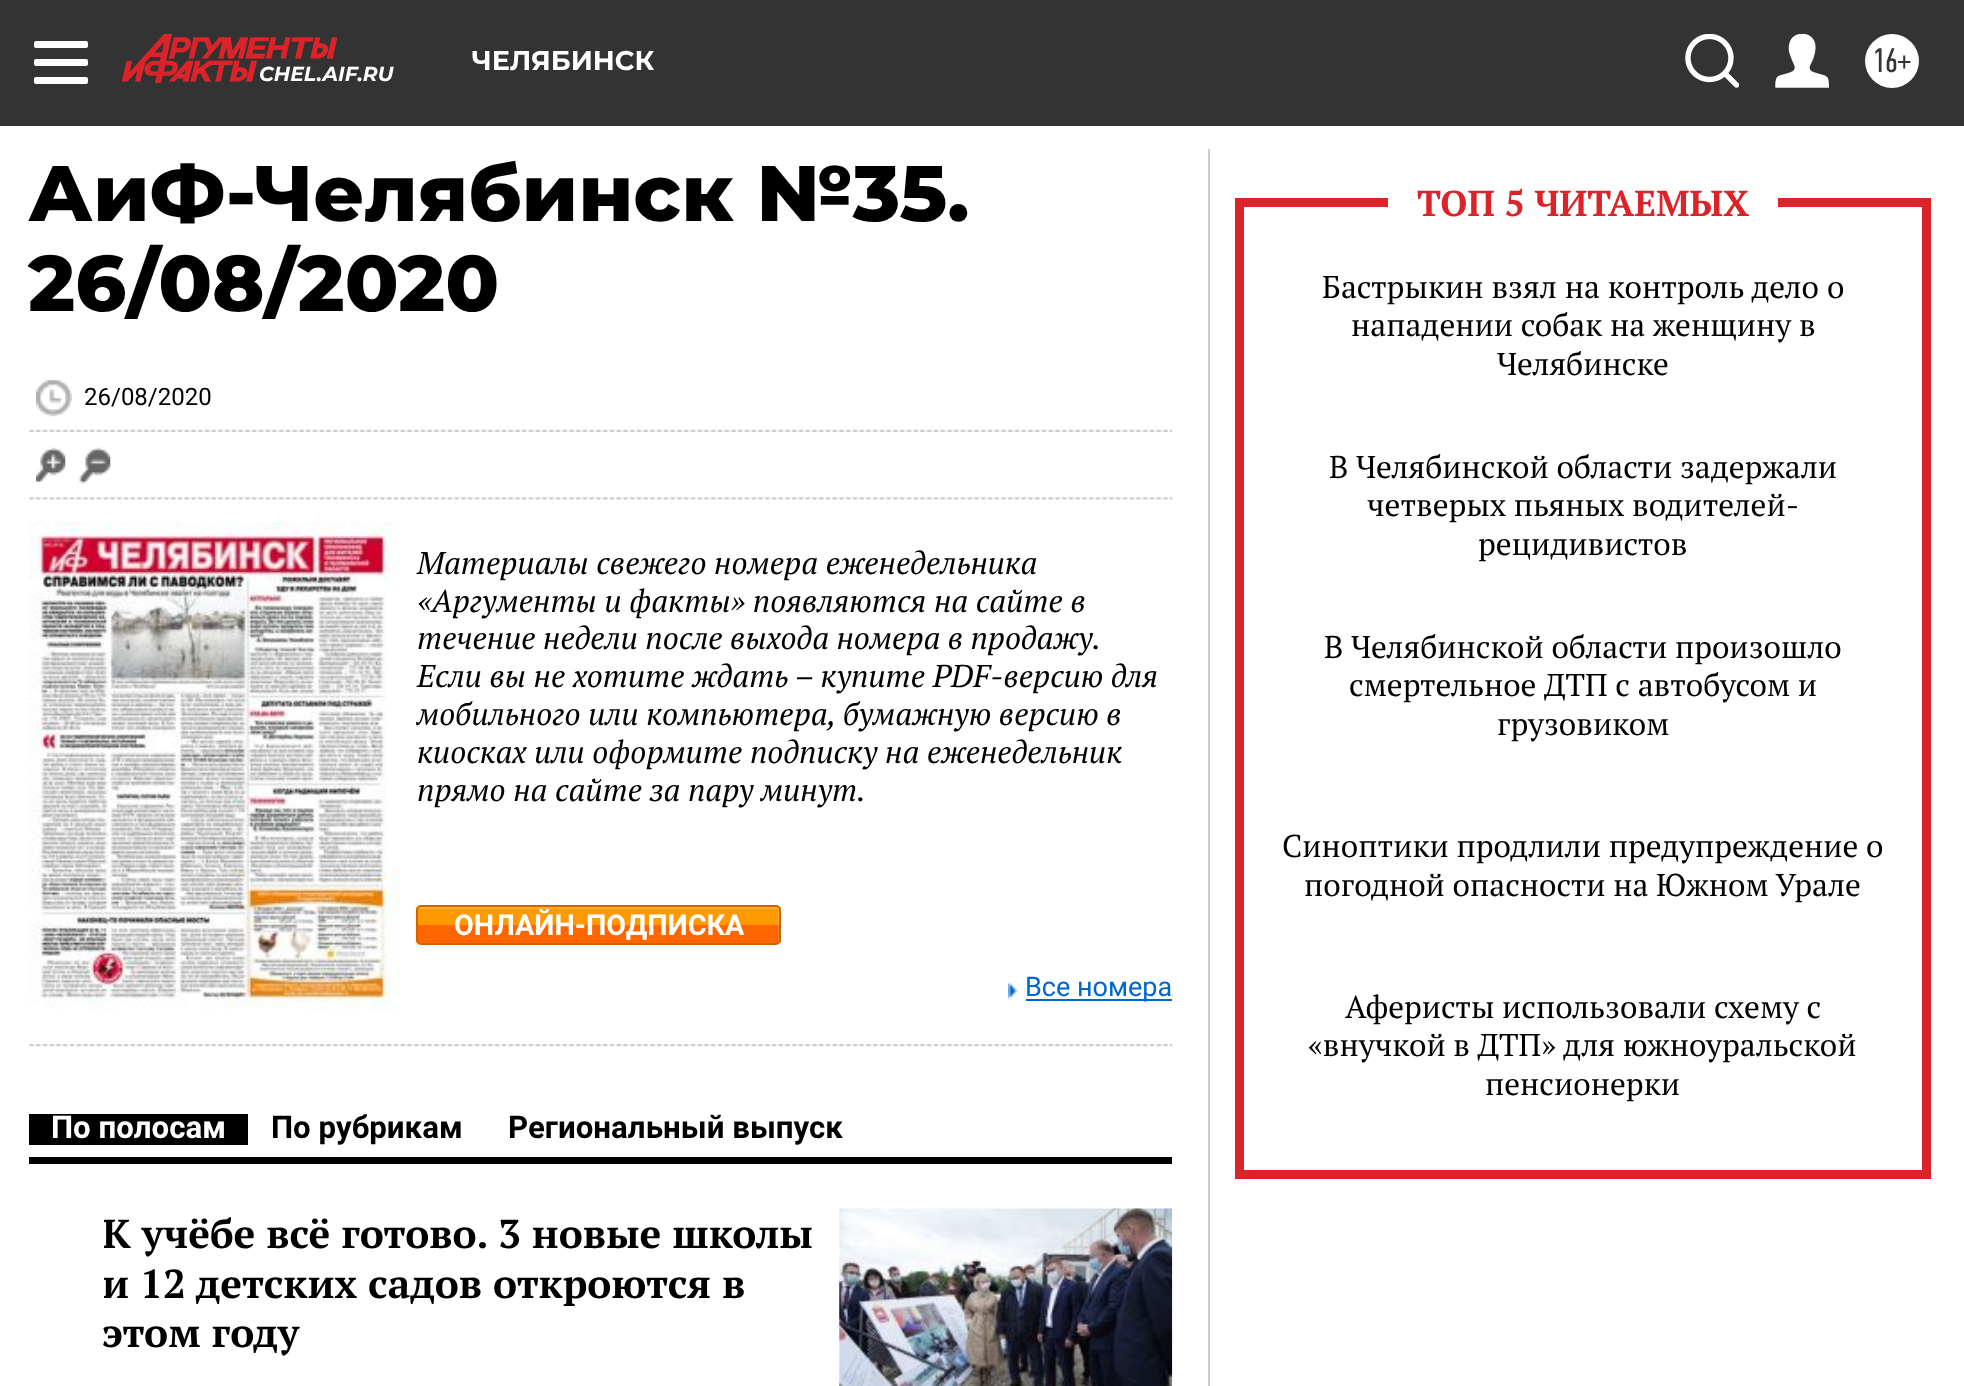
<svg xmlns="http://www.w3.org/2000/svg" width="1964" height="1386">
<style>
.a{font:bold 27px Montserrat;fill:#fff}
.b{font:34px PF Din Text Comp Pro;fill:#333}
.c{font:italic bold 20.25px Montserrat;fill:#fff}
.d{font:800 78.75px Montserrat;fill:#000}
.e{font:24px Roboto;fill:#000}
.f{font:italic 31.5px PT Serif;fill:#000}
.g{font:bold 28.75px Roboto;fill:#fff}
.h{font:27px Roboto;fill:#06c}
.i{font:bold 31.25px Roboto;fill:#fff}
.j{font:bold 31.25px Roboto;fill:#000}
.k{font:bold 40.5px PT Serif;fill:#000}
.l{font:bold 36px PT Serif;fill:#da2429}
.m{font:31.5px PT Serif;fill:#000}
</style>
<defs>
<clipPath id="clip1"><rect x="416" y="905" width="365" height="40" rx="5"/></clipPath>
<clipPath id="clip2"><path d="M104 1208h720v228H104z"/></clipPath>
</defs>
<rect width="100%" height="100%" fill="#fff"/>
<path fill="#333" d="M0 0h1964v126H0z"/>
<rect fill="#fff" x="34" y="41" width="54" height="7" rx="2"/>
<rect fill="#fff" x="34" y="59" width="54" height="7" rx="2"/>
<rect fill="#fff" x="34" y="77" width="54" height="7" rx="2"/>
<image href="1.png" x="1685" y="34" width="54" height="54"/>
<image href="2.png" x="1775" y="34" width="54" height="54"/>
<circle fill="#fff" cx="1892" cy="61" r="27"/>
<image href="3.png" x="122" y="34" width="216" height="49"/>
<path fill="#ccc" d="M1208 149h2v1237H1208z"/>
<image href="4.png" x="29" y="1044" width="1144" height="3"/>
<image href="5.png" x="29" y="429" width="1144" height="3"/>
<image href="6.png" x="36" y="380" width="36" height="37"/>
<image href="7.png" x="29" y="497" width="1144" height="3"/>
<image href="8.png" x="36" y="447" width="30" height="35"/>
<image href="9.png" x="78" y="447" width="33" height="37"/>
<image href="10.png" x="29" y="522" width="372" height="488"/>
<rect fill="#0000000d" filter="blur(2px)" x="416" y="907" width="365" height="40" rx="5"/>
<g clip-path="url(#clip1)">
<path fill="#f90" d="M416 907h365v18H416z"/>
<path fill="#f60" d="M416 925h365v18H416z"/>
</g>
<path fill="#ffffff33" d="M421 909h355c1 0 2 1 2 2v32c1-1 1-1 1-2v-32c0-1-1-2-2-2h-356c-1 0-2 1-2 2v1z"/>
<rect fill="none" stroke="#c60" stroke-width="2" x="417" y="906" width="363" height="38" rx="4"/>
<image href="11.png" x="1008" y="982" width="10" height="18"/>
<path fill="#06c" d="M1026 999h146v2H1026z"/>
<path fill="#000" d="M29 1157h1143v7H29z"/>
<path fill="#000" d="M29 1114h219v31H29z"/>
<image href="12.png" x="839" y="1208" width="334" height="178"/>
<path fill="#da2429" d="M1235 198h153v9H1235z"/>
<path fill="#da2429" d="M1778 198h153v9H1778z"/>
<path fill="#da2429" d="M1922 207h9v963H1922z"/>
<path fill="#da2429" d="M1244 1170h687v9H1244z"/>
<path fill="#da2429" d="M1235 207h9v972H1235z"/>
<text class="a" x="472" y="70">ЧЕЛЯБИНСК</text>
<text class="b" x="1872" y="72">16+</text>
<text class="c" x="259" y="81">CHEL.AIF.RU</text>
<text class="d" x="28" y="221">АиФ-Челябинск №35.</text>
<text class="d" x="28" y="311">26/08/2020</text>
<text class="e" x="84" y="405">26/08/2020</text>
<text class="f" x="417" y="574">Материалы свежего номера еженедельника</text>
<text class="f" x="417" y="612">«Аргументы и факты» появляются на сайте в</text>
<text class="f" x="417" y="649" word-spacing="-0.25">течение недели после выхода номера в продажу.</text>
<text class="f" x="417" y="687">Если вы не хотите ждать – купите PDF-версию для</text>
<text class="f" x="417" y="725">мобильного или компьютера, бумажную версию в</text>
<text class="f" x="417" y="763">киосках или оформите подписку на еженедельник</text>
<text class="f" x="417" y="801">прямо на сайте за пару минут.</text>
<text class="g" x="454" y="935">ОНЛАЙН-ПОДПИСКА</text>
<text class="h" x="1025" y="996">Все номера</text>
<text class="i" x="51" y="1138">По полосам</text>
<text class="j" x="271" y="1138">По рубрикам</text>
<text class="j" x="508" y="1138">Региональный выпуск</text>
<g clip-path="url(#clip2)">
<text class="k" x="102" y="1248">К учёбе всё готово. 3 новые школы</text>
<text class="k" x="102" y="1298">и 12 детских садов откроются в</text>
</g>
<text class="k" x="102" y="1347">этом году</text>
<text class="l" x="1417" y="216">ТОП 5 ЧИТАЕМЫХ</text>
<text class="m" x="1322" y="298" word-spacing="0.25">Бастрыкин взял на контроль дело о</text>
<text class="m" x="1351" y="336">нападении собак на женщину в</text>
<text class="m" x="1497" y="375">Челябинске</text>
<text class="m" x="1329" y="478">В Челябинской области задержали</text>
<text class="m" x="1367" y="516">четверых пьяных водителей-</text>
<text class="m" x="1478" y="555">рецидивистов</text>
<text class="m" x="1324" y="658">В Челябинской области произошло</text>
<text class="m" x="1349" y="696">смертельное ДТП с автобусом и</text>
<text class="m" x="1497" y="735">грузовиком</text>
<text class="m" x="1282" y="857">Синоптики продлили предупреждение о</text>
<text class="m" x="1304" y="896">погодной опасности на Южном Урале</text>
<text class="m" x="1345" y="1018">Аферисты использовали схему с</text>
<text class="m" x="1308" y="1056">«внучкой в ДТП» для южноуральской</text>
<text class="m" x="1485" y="1095">пенсионерки</text>
</svg>
